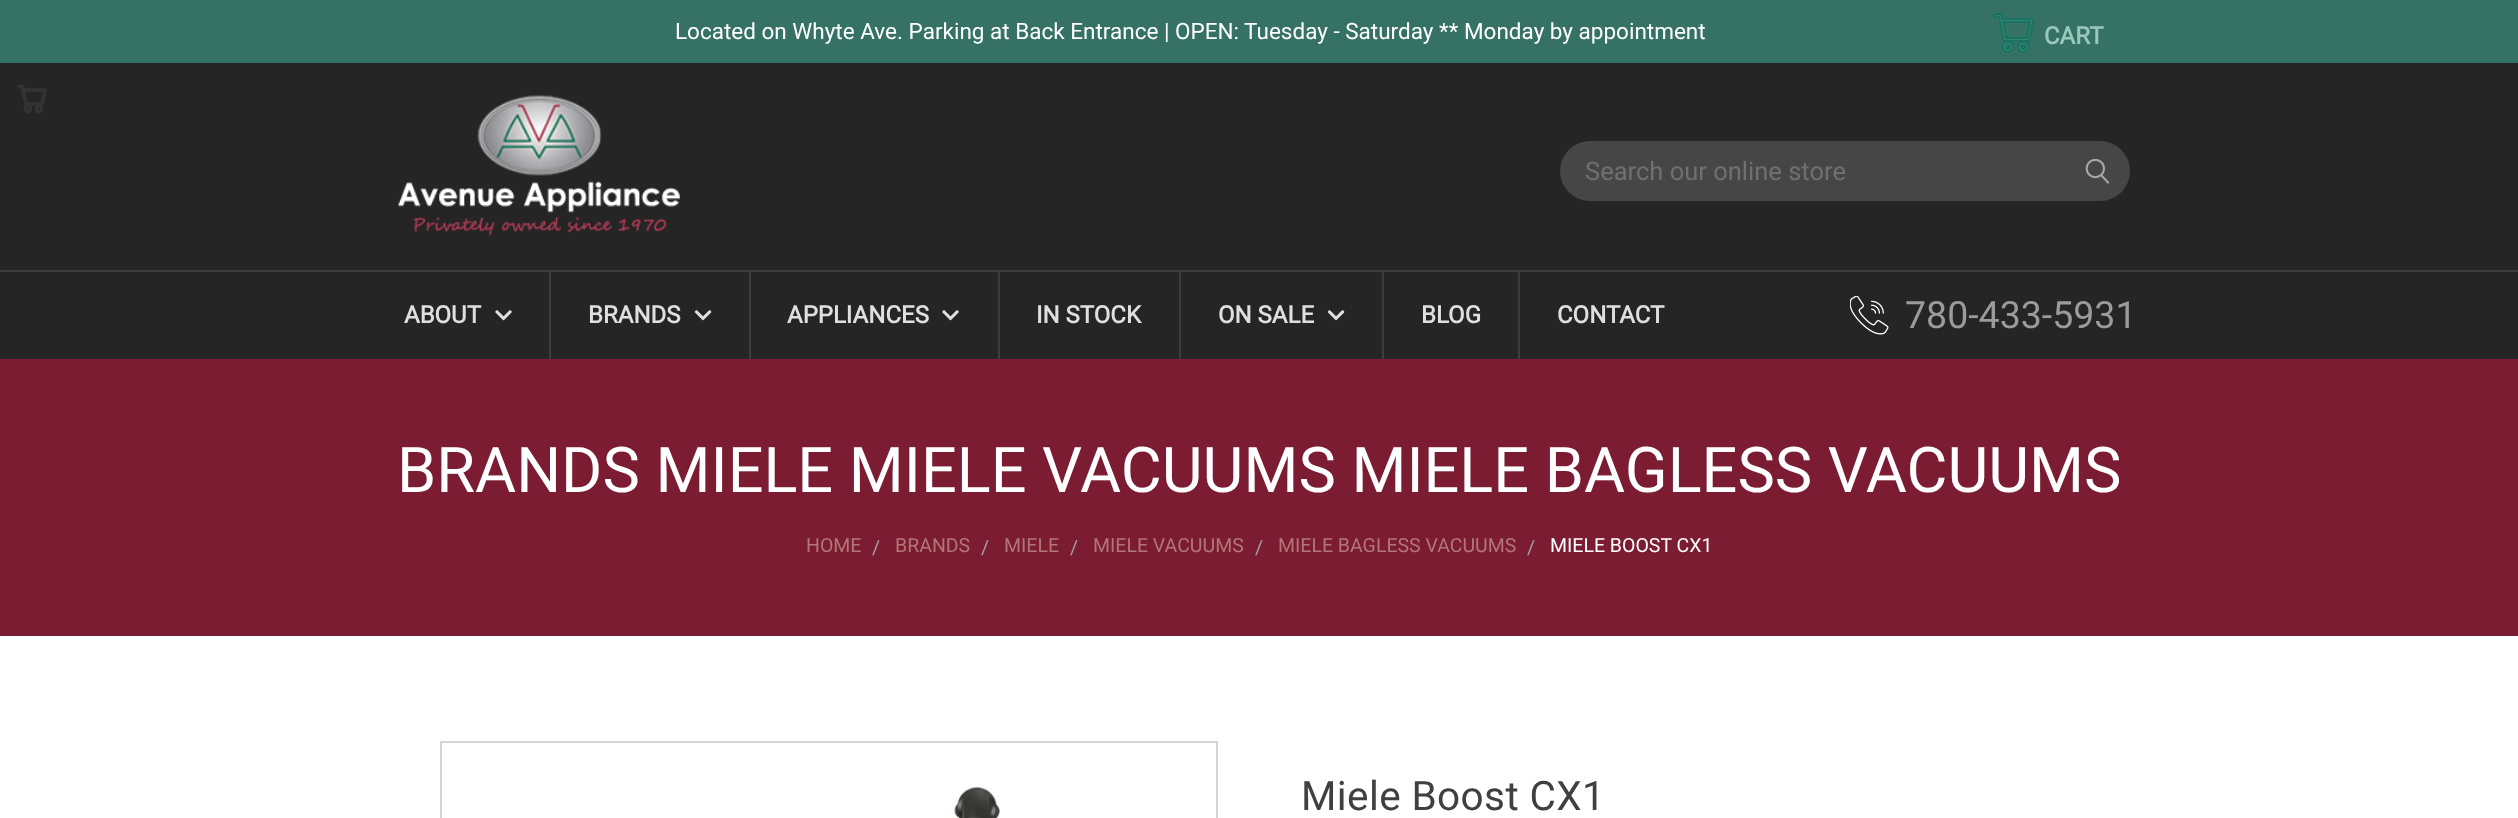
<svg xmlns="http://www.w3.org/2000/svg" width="2518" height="818">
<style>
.a{font:22.5px Roboto;fill:#fff}
.b{font:bold 24px Roboto;fill:#99c8bc}
.c{font:25.5px Roboto;fill:#70706e}
.d{font:bold 24px Roboto;fill:#dfdfdf}
.e{font:37.5px Roboto;fill:#9b9b9b}
.f{font:63px Roboto;fill:#fff}
.g{font:19.5px Roboto;fill:#b37676}
.h{font:19.5px Roboto;fill:#a2a2a2}
.i{font:19.5px Roboto;fill:#fff}
.j{font:40.5px Roboto;letter-spacing:0.4px;fill:#404040}
</style>
<rect width="100%" height="100%" fill="#fff"/>
<path fill="#357164" d="M0 0h2518v63H0z"/>
<image href="1.png" x="1993" y="13" width="41" height="40"/>
<path fill="#252525" d="M0 63h2518v296H0z"/>
<image href="2.png" x="17" y="84" width="30" height="29"/>
<image href="3.png" x="397" y="95" width="283" height="141"/>
<rect fill="#464646" x="1560" y="141" width="570" height="60" rx="30"/>
<image href="4.png" x="2085" y="158" width="25" height="26"/>
<path fill="#3c3c3c" d="M0 270h2518v2H0z"/>
<path fill="#3c3c3c" d="M549 272h2v87H549z"/>
<image href="5.png" x="495" y="310" width="17" height="11"/>
<path fill="#3c3c3c" d="M749 272h2v87H749z"/>
<image href="6.png" x="694" y="310" width="18" height="11"/>
<path fill="#3c3c3c" d="M998 272h2v87H998z"/>
<image href="5.png" x="942" y="310" width="17" height="11"/>
<path fill="#3c3c3c" d="M1179 272h2v87H1179z"/>
<path fill="#3c3c3c" d="M1382 272h2v87H1382z"/>
<image href="6.png" x="1327" y="310" width="18" height="11"/>
<path fill="#3c3c3c" d="M1518 272h2v87H1518z"/>
<image href="7.png" x="1850" y="296" width="39" height="39"/>
<path fill="#7b1c32" d="M0 359h2518v277H0z"/>
<path fill="none" stroke="#d5d5d5" stroke-width="2" d="M441 742h776v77H441z"/>
<image href="8.png" x="950" y="787" width="51" height="31"/>
<text class="a" x="675" y="39">Located on Whyte Ave. Parking at Back Entrance | OPEN: Tuesday - Saturday ** Monday by appointment</text>
<text class="b" x="2044" y="44">CART</text>
<text class="c" x="1585" y="180">Search our online store</text>
<text class="d" x="404" y="323">ABOUT</text>
<text class="d" x="588" y="323">BRANDS</text>
<text class="d" x="787" y="323">APPLIANCES</text>
<text class="d" x="1036" y="323">IN STOCK</text>
<text class="d" x="1218" y="323">ON SALE</text>
<text class="d" x="1421" y="323">BLOG</text>
<text class="d" x="1557" y="323">CONTACT</text>
<text class="e" x="1905" y="328">780-433-5931</text>
<text class="f" x="397" y="492">BRANDS MIELE MIELE VACUUMS MIELE BAGLESS VACUUMS</text>
<text class="g" x="806" y="552">HOME</text>
<text class="h" x="872" y="554">/</text>
<text class="g" x="895" y="552">BRANDS</text>
<text class="h" x="981" y="554">/</text>
<text class="g" x="1004" y="552">MIELE</text>
<text class="h" x="1070" y="554">/</text>
<text class="g" x="1093" y="552">MIELE VACUUMS</text>
<text class="h" x="1255" y="554">/</text>
<text class="g" x="1278" y="552">MIELE BAGLESS VACUUMS</text>
<text class="h" x="1527" y="554">/</text>
<text class="i" x="1550" y="552">MIELE BOOST CX1</text>
<text class="j" x="1301" y="810">Miele Boost CX1</text>
</svg>
